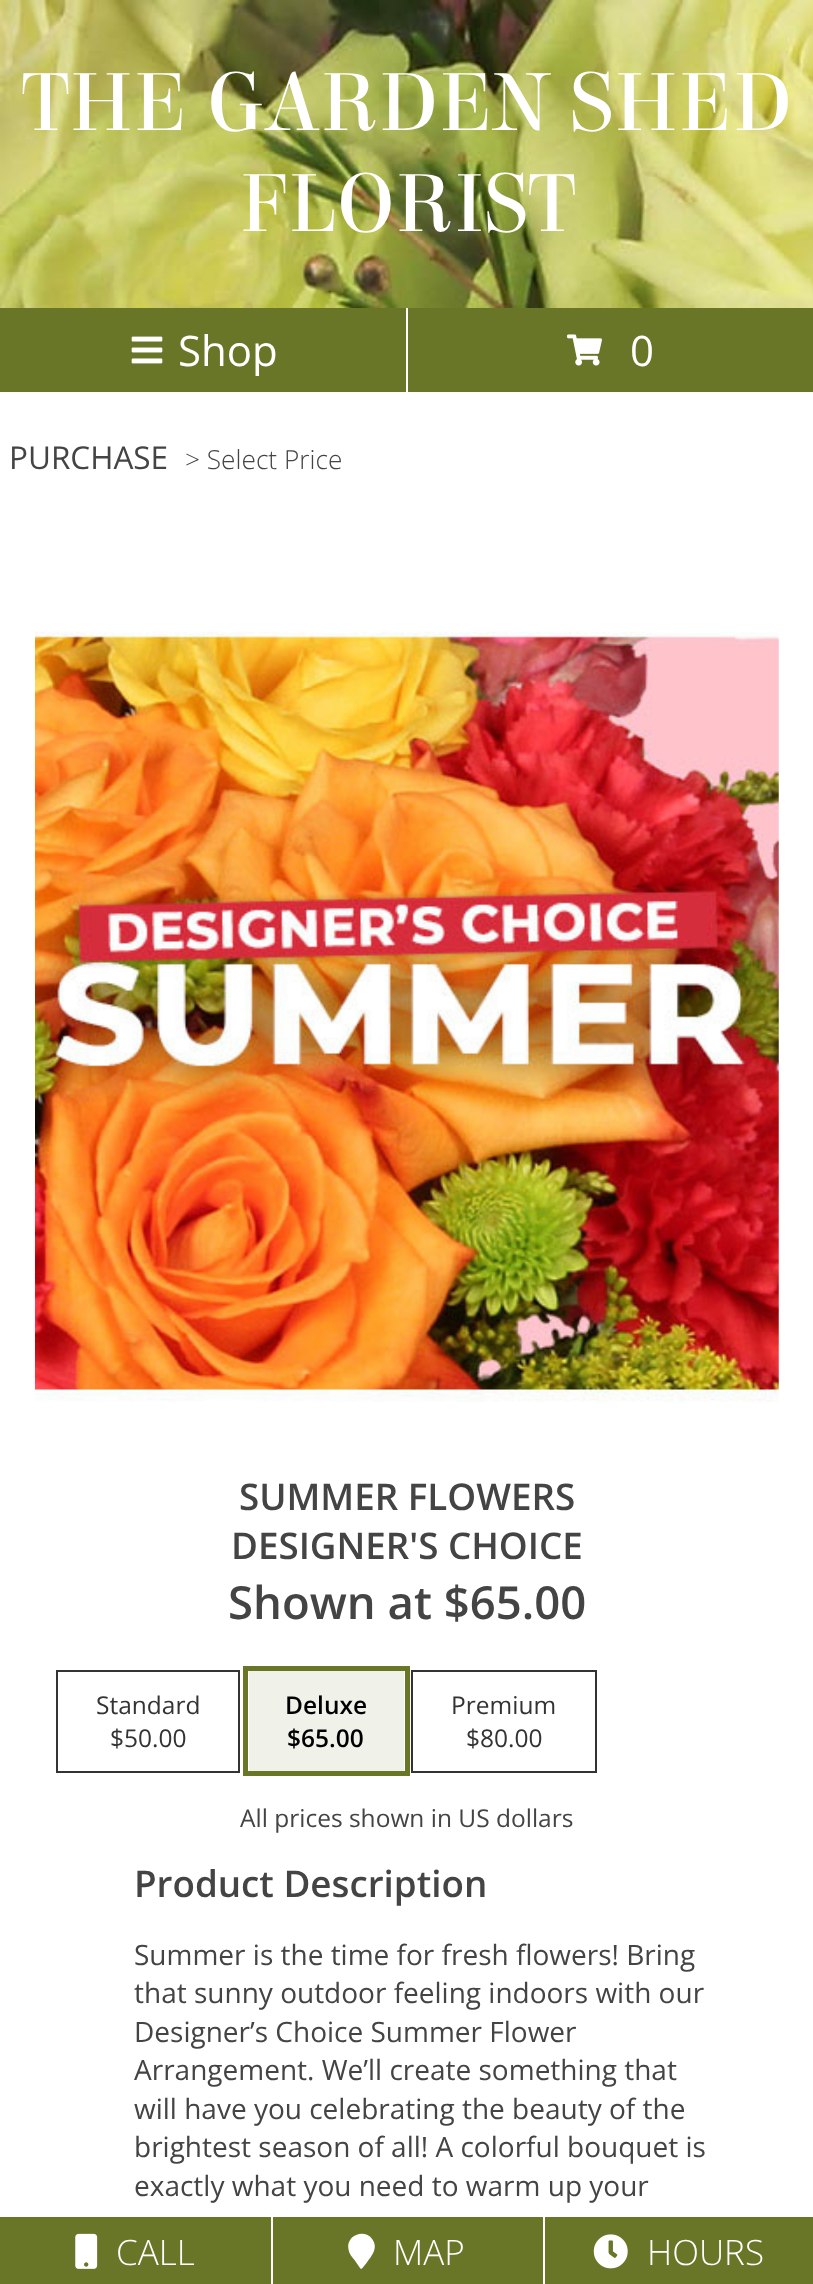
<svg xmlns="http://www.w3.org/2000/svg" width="813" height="2284">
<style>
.a{font:87.5px Elsie;fill:#fff}
.b{font:42px Open Sans;fill:#fff}
.c{font:31.5px Open Sans;fill:#444}
.d{font:300 26.25px Open Sans;fill:#444}
.e{font:600 36.75px Open Sans;fill:#444}
.f{font:600 45.5px Open Sans;fill:#444}
.g{font:24.5px Open Sans;fill:#333}
.h{font:600 24.5px Open Sans;fill:#000}
.i{font:24.5px Open Sans;fill:#444}
.j{font:28px Open Sans;fill:#444}
.k{font:300 35px Open Sans;fill:#fff}
</style>
<rect width="100%" height="100%" fill="#fff"/>
<image href="1.png" x="0" y="0" width="813" height="308"/>
<path fill="#697628" d="M0 308h406v84H0z"/>
<image href="2.png" x="131" y="336" width="32" height="28"/>
<path fill="#697628" d="M408 308h405v84H408z"/>
<image href="3.png" x="567" y="334" width="35" height="32"/>
<image href="4.png" x="35" y="631" width="744" height="771"/>
<path fill="none" stroke="#333" stroke-width="2" d="M57 1671h182v101H57z"/>
<path fill="none" stroke="#697628" stroke-width="5" d="M245.5 1668.5h162v105H245.5z"/>
<path fill="#f0f1e9" d="M249 1671h155v100H249z"/>
<path fill="none" stroke="#333" stroke-width="2" d="M412 1671h184v101H412z"/>
<path fill="#697628" d="M0 2217h271v67H0z"/>
<image href="5.png" x="75" y="2233" width="23" height="36"/>
<path fill="#697628" d="M273 2217h270v67H273z"/>
<path fill="#fff" d="M360 2268l-5.5-8c-2.5-3-5.5-6.5-6-10.5c-3-14 16-21.5 24-10c6 9-1 16.5-6 23.5l-4.5 5.5c-.5 .5-1.5 .5-2-.5z"/>
<path fill="#697628" d="M545 2217h268v67H545z"/>
<image href="6.png" x="593" y="2234" width="35" height="35"/>
<text class="a" x="22" y="130">THE GARDEN SHED</text>
<text class="a" x="239" y="231">FLORIST</text>
<text class="b" x="178" y="366">Shop</text>
<text class="b" x="630" y="366">0</text>
<text class="c" x="9" y="469">PURCHASE</text>
<text class="d" x="185" y="469">&gt; Select Price</text>
<text class="e" x="239" y="1510">SUMMER FLOWERS</text>
<text class="e" x="231" y="1559">DESIGNER'S CHOICE</text>
<text class="f" x="228" y="1619">Shown at $65.00</text>
<text class="g" x="96" y="1714">Standard</text>
<text class="g" x="110" y="1747">$50.00</text>
<text class="h" x="285" y="1714">Deluxe</text>
<text class="h" x="287" y="1747">$65.00</text>
<text class="g" x="451" y="1714">Premium</text>
<text class="g" x="466" y="1747">$80.00</text>
<text class="i" x="240" y="1827">All prices shown in US dollars</text>
<text class="e" x="134" y="1897">Product Description</text>
<text class="j" x="134" y="1965">Summer is the time for fresh flowers! Bring</text>
<text class="j" x="134" y="2003">that sunny outdoor feeling indoors with our</text>
<text class="j" x="134" y="2042">Designer’s Choice Summer Flower</text>
<text class="j" x="134" y="2080">Arrangement. We’ll create something that</text>
<text class="j" x="134" y="2119">will have you celebrating the beauty of the</text>
<text class="j" x="134" y="2157">brightest season of all! A colorful bouquet is</text>
<text class="j" x="134" y="2196">exactly what you need to warm up your</text>
<text class="k" x="116" y="2265">CALL</text>
<text class="k" x="393" y="2265">MAP</text>
<text class="k" x="647" y="2265">HOURS</text>
</svg>
